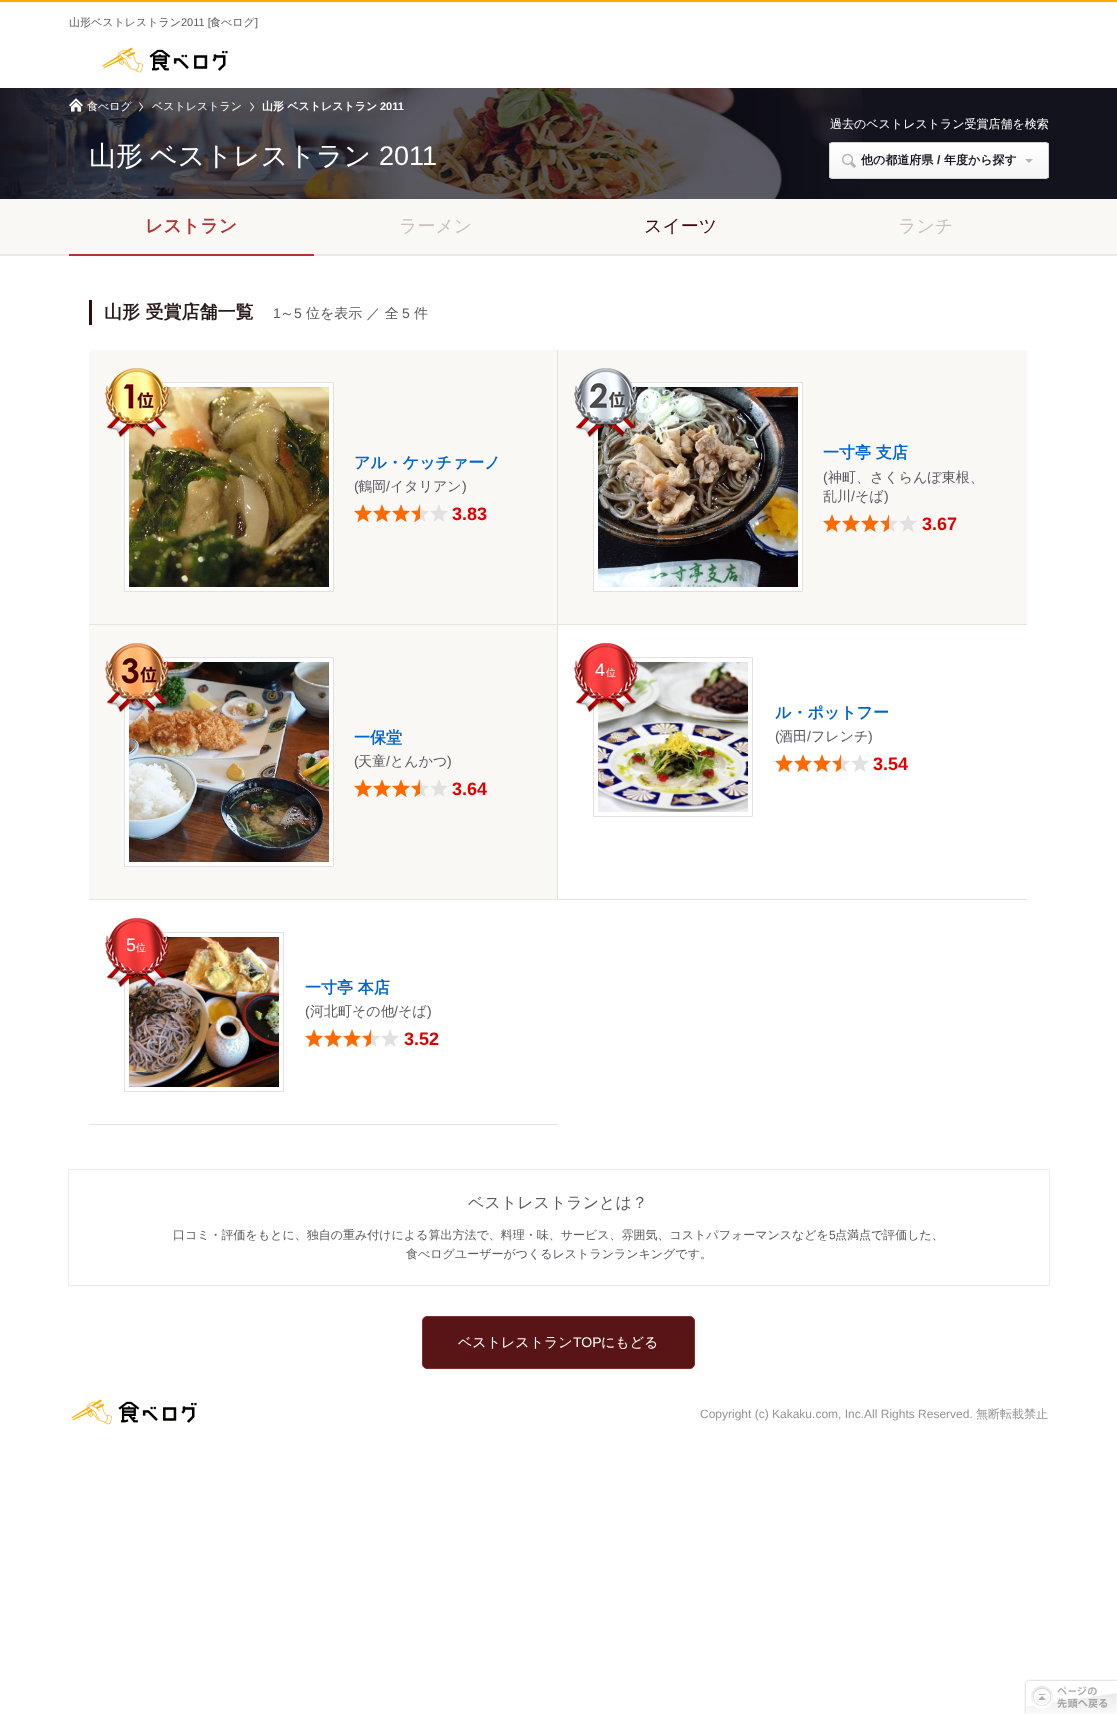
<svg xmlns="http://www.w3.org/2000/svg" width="1117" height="1714">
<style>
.a{font:500 11px WenQuanYi Zen Hei;fill:#595960}
.b{font:11px Liberation Sans;fill:#595960}
.c{font:500 11px WenQuanYi Zen Hei;fill:#fff}
.d{font:bold 11px WenQuanYi Zen Hei;fill:#fff}
.e{font:bold 11px Liberation Sans;fill:#fff}
.f{font:500 27px WenQuanYi Zen Hei;fill:#fff}
.g{font:27px Liberation Sans;fill:#fff}
.h{font:500 12px WenQuanYi Zen Hei;fill:#fff}
.i{font:bold 12px WenQuanYi Zen Hei;fill:#13131e}
.j{font:bold 12px Liberation Sans;fill:#13131e}
.k{font:bold 18px WenQuanYi Zen Hei;fill:#b33635}
.l{font:500 18px WenQuanYi Zen Hei;fill:#c9c1bf}
.m{font:500 18px WenQuanYi Zen Hei;fill:#380a0c}
.n{font:bold 18px WenQuanYi Zen Hei;fill:#281a1a}
.o{font:14px Liberation Sans;fill:#595960}
.p{font:500 14px WenQuanYi Zen Hei;fill:#595960}
.q{font:bold 16px WenQuanYi Zen Hei;fill:#06c}
.r{font:bold 18px Liberation Sans;fill:#e10000}
.s{font:18px Liberation Sans;fill:#fff}
.t{font:500 10px WenQuanYi Zen Hei;fill:#fff}
.u{font:500 16px WenQuanYi Zen Hei;fill:#595960}
.v{font:500 12px WenQuanYi Zen Hei;fill:#595960}
.w{font:12px Liberation Sans;fill:#595960}
.x{font:500 14px WenQuanYi Zen Hei;fill:#fff}
.y{font:14px Liberation Sans;fill:#fff}
.z{font:12px Liberation Sans;fill:#949499}
.a1{font:500 12px WenQuanYi Zen Hei;fill:#949499}
</style>
<defs>
<clipPath id="clip1"><rect x="829" y="142" width="220" height="37" rx="3"/></clipPath>
<linearGradient id="g1" gradientUnits="userSpaceOnUse" x1="939" y1="143" x2="939" y2="178"><stop offset="0" stop-color="#fff"/><stop offset="1" stop-color="#f4f4f4"/></linearGradient>
</defs>
<rect width="100%" height="100%" fill="#fff"/>
<path fill="#fa0" d="M0 0h1117v2H0z"/>
<image href="1.png" x="102" y="47" width="126" height="26"/>
<path fill="#13131e" d="M862 88h255v111H862z"/>
<image href="2.png" x="0" y="88" width="862" height="111"/>
<image href="3.png" x="69" y="98" width="14" height="14"/>
<image href="4.png" x="138" y="102" width="6" height="10"/>
<image href="5.png" x="249" y="102" width="6" height="10"/>
<path fill="#0000001a" d="M829 176v1c0 2 1 3 3 3h214c2 0 3-1 3-3v-1c0 2-1 3-3 3h-214c-2 0-3-1-3-3z"/>
<g clip-path="url(#clip1)">
<path fill="url(#g1)" d="M829 143h220v35H829z"/>
</g>
<rect fill="none" stroke="#d2d2d2" x="829.5" y="142.5" width="219" height="36" rx="2.5"/>
<image href="6.png" x="842" y="153" width="14" height="15"/>
<path fill="#b4b4b4" d="M1033 159l-4 4l-4-4z"/>
<path fill="#faf8f5" d="M0 199h1117v55H0z"/>
<path fill="#e9e9e9" d="M0 254h1117v2H0z"/>
<path fill="#b33635" d="M69 254h245v2H69z"/>
<path fill="#380a0c" d="M89 300h3v25H89z"/>
<path fill="#faf8f5" d="M89 350h468v274H89z"/>
<path fill="#e4e5dc" d="M557 350h1v550H557z"/>
<path fill="#e4e5dc" d="M89 624h938v1H89z"/>
<path fill="#fff" stroke="#e1e1e1" d="M124.5 382.5h209v209H124.5z"/>
<image href="8.png" x="129" y="387" width="200" height="200"/>
<image href="7.png" x="105" y="367" width="64" height="71"/>
<image href="10.png" x="354" y="505" width="94" height="17"/>
<image href="9.png" x="354" y="504" width="66" height="18"/>
<path fill="#faf8f5" d="M558 350h469v274H558z"/>
<path fill="#fff" stroke="#e1e1e1" d="M593.5 382.5h209v209H593.5z"/>
<image href="12.png" x="598" y="387" width="200" height="200"/>
<image href="11.png" x="574" y="368" width="64" height="70"/>
<image href="10.png" x="823" y="515" width="94" height="17"/>
<image href="9.png" x="823" y="514" width="66" height="18"/>
<path fill="#faf8f5" d="M89 625h468v274H89z"/>
<path fill="#e4e5dc" d="M89 899h938v1H89z"/>
<path fill="#fff" stroke="#e1e1e1" d="M124.5 657.5h209v209H124.5z"/>
<image href="14.png" x="129" y="662" width="200" height="200"/>
<image href="13.png" x="105" y="643" width="64" height="70"/>
<image href="10.png" x="354" y="780" width="94" height="17"/>
<image href="9.png" x="354" y="779" width="66" height="18"/>
<path fill="none" stroke="#e1e1e1" d="M593.5 657.5h159v159H593.5z"/>
<image href="15.png" x="598" y="662" width="150" height="150"/>
<image href="16.png" x="574" y="642" width="64" height="71"/>
<image href="17.png" x="775" y="754" width="94" height="18"/>
<image href="18.png" x="775" y="754" width="66" height="18"/>
<path fill="#e4e5dc" d="M89 1124h469v1H89z"/>
<path fill="none" stroke="#e1e1e1" d="M124.5 932.5h159v159H124.5z"/>
<image href="19.png" x="129" y="937" width="150" height="150"/>
<image href="20.png" x="105" y="917" width="64" height="71"/>
<image href="17.png" x="305" y="1029" width="94" height="18"/>
<image href="18.png" x="305" y="1029" width="66" height="18"/>
<path fill="none" stroke="#eeece4" d="M68.5 1169.5h981v116H68.5z"/>
<rect fill="#591416" stroke="#812f2c" x="422.5" y="1316.5" width="272" height="52" rx="4.5"/>
<image href="1.png" x="71" y="1399" width="126" height="26"/>
<image href="21.png" x="1024" y="1679" width="93" height="35"/>
<text class="a" x="69" y="26">山形ベストレストラン</text>
<text class="b" x="181" y="26">2011 [</text>
<text class="a" x="210" y="26">食べログ</text>
<text class="b" x="255" y="26">]</text>
<text class="c" x="87" y="110">食べログ</text>
<text class="c" x="152" y="110">ベストレストラン</text>
<text class="d" x="262" y="110">山形 ベストレストラン</text>
<text class="e" x="380" y="110">2011</text>
<text class="f" x="89" y="165" word-spacing="-1">山形 ベストレストラン</text>
<text class="g" x="379" y="165">2011</text>
<text class="h" x="830" y="128">過去のベストレストラン受賞店舗を検索</text>
<text class="i" x="861" y="164">他の都道府県</text>
<text class="j" x="937" y="164">/</text>
<text class="i" x="944" y="164">年度から探す</text>
<text class="k" x="145" y="232">レストラン</text>
<text class="l" x="399" y="232">ラーメン</text>
<text class="m" x="644" y="232">スイーツ</text>
<text class="l" x="898" y="232">ランチ</text>
<text class="n" x="104" y="318">山形 受賞店舗一覧</text>
<text class="o" x="273" y="318">1</text>
<text class="p" x="280" y="318">～</text>
<text class="o" x="294" y="318">5</text>
<text class="p" x="306" y="318">位を表示 ／ 全</text>
<text class="o" x="402" y="318">5</text>
<text class="p" x="414" y="318">件</text>
<text class="q" x="354" y="468">アル・ケッチァーノ</text>
<text class="o" x="354" y="491">(</text>
<text class="p" x="358" y="491">鶴岡</text>
<text class="o" x="386" y="491">/</text>
<text class="p" x="390" y="491">イタリアン</text>
<text class="o" x="462" y="491">)</text>
<text class="r" x="452" y="520">3.83</text>
<text class="q" x="823" y="458">一寸亭 支店</text>
<text class="o" x="823" y="482">(</text>
<text class="p" x="828" y="482">神町、さくらんぼ東根、</text>
<text class="p" x="823" y="501">乱川</text>
<text class="o" x="851" y="501">/</text>
<text class="p" x="855" y="501">そば</text>
<text class="o" x="884" y="501">)</text>
<text class="r" x="922" y="530">3.67</text>
<text class="q" x="354" y="743">一保堂</text>
<text class="o" x="354" y="766">(</text>
<text class="p" x="358" y="766">天童</text>
<text class="o" x="386" y="766">/</text>
<text class="p" x="390" y="766">とんかつ</text>
<text class="o" x="447" y="766">)</text>
<text class="r" x="452" y="795">3.64</text>
<text class="s" x="595" y="676">4</text>
<text class="t" x="606" y="676">位</text>
<text class="q" x="775" y="718">ル・ポットフー</text>
<text class="o" x="775" y="741">(</text>
<text class="p" x="779" y="741">酒田</text>
<text class="o" x="807" y="741">/</text>
<text class="p" x="811" y="741">フレンチ</text>
<text class="o" x="868" y="741">)</text>
<text class="r" x="873" y="770">3.54</text>
<text class="s" x="126" y="951">5</text>
<text class="t" x="136" y="951">位</text>
<text class="q" x="305" y="993">一寸亭 本店</text>
<text class="o" x="305" y="1016">(</text>
<text class="p" x="310" y="1016">河北町その他</text>
<text class="o" x="394" y="1016">/</text>
<text class="p" x="398" y="1016">そば</text>
<text class="o" x="427" y="1016">)</text>
<text class="r" x="404" y="1045">3.52</text>
<text class="u" x="468" y="1208">ベストレストランとは？</text>
<text class="v" x="173" y="1239">口コミ・評価をもとに、独自の重み付けによる算出方法で、料理・味、サービス、雰囲気、コストパフォーマンスなどを</text>
<text class="w" x="829" y="1239">5</text>
<text class="v" x="835" y="1239">点満点で評価した、</text>
<text class="v" x="406" y="1258">食べログユーザーがつくるレストランランキングです。</text>
<text class="x" x="458" y="1347">ベストレストラン</text>
<text class="y" x="573" y="1347">TOP</text>
<text class="x" x="601" y="1347">にもどる</text>
<text class="z" x="700" y="1418">Copyright (c) Kakaku.com, Inc.All Rights Reserved.</text>
<text class="a1" x="976" y="1418">無断転載禁止</text>
</svg>
